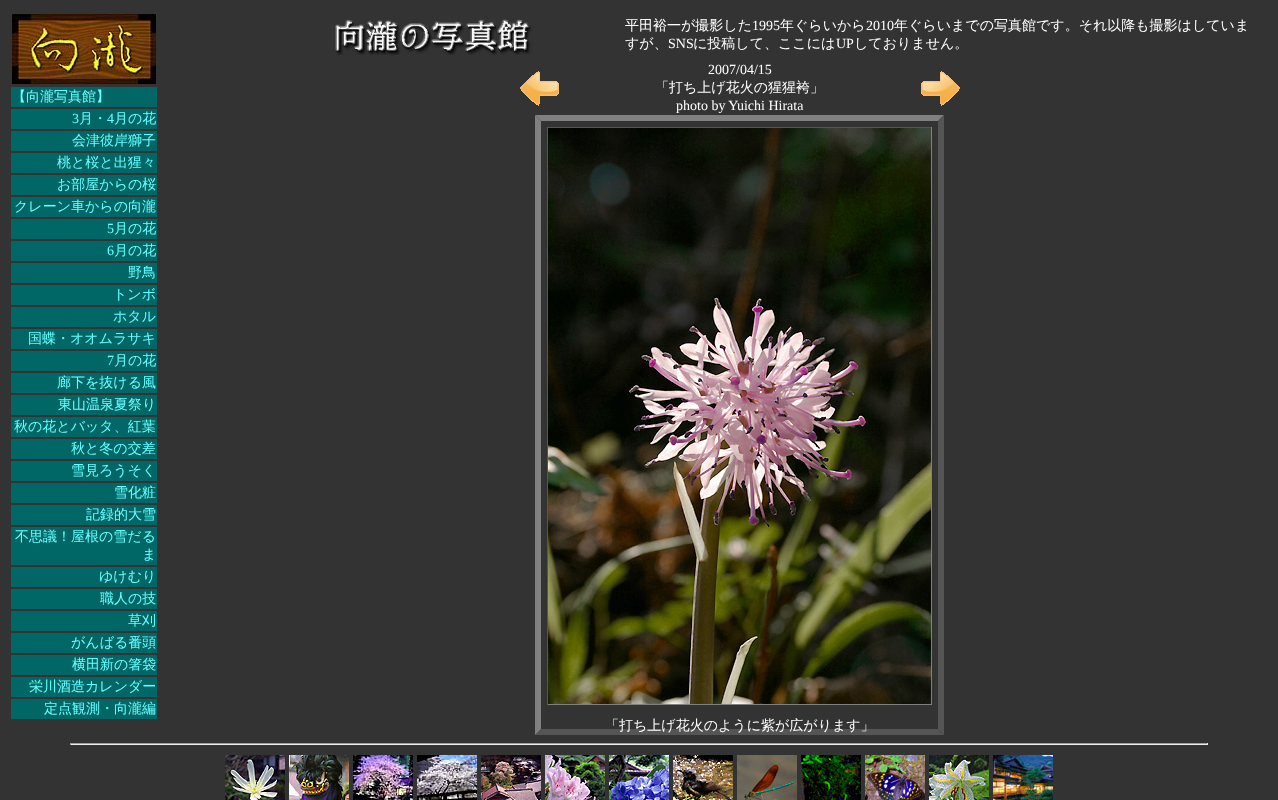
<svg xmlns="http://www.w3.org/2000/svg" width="1278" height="800">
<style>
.a{font:500 14px WenQuanYi Zen Hei;fill:#6ff}
.b{font:14px Liberation Serif;fill:#6ff}
.c{font:500 14px WenQuanYi Zen Hei;fill:#fff}
.d{font:14px Liberation Serif;fill:#fff}
</style>
<rect width="100%" height="100%" fill="#333"/>
<image href="1.png" x="12" y="14" width="144" height="70"/>
<path fill="#066" d="M11 87h146v20H11z"/>
<path fill="#066" d="M11 109h146v20H11z"/>
<path fill="#066" d="M11 131h146v20H11z"/>
<path fill="#066" d="M11 153h146v20H11z"/>
<path fill="#066" d="M11 175h146v20H11z"/>
<path fill="#066" d="M11 197h146v20H11z"/>
<path fill="#066" d="M11 219h146v20H11z"/>
<path fill="#066" d="M11 241h146v20H11z"/>
<path fill="#066" d="M11 263h146v20H11z"/>
<path fill="#066" d="M11 285h146v20H11z"/>
<path fill="#066" d="M11 307h146v20H11z"/>
<path fill="#066" d="M11 329h146v20H11z"/>
<path fill="#066" d="M11 351h146v20H11z"/>
<path fill="#066" d="M11 373h146v20H11z"/>
<path fill="#066" d="M11 395h146v20H11z"/>
<path fill="#066" d="M11 417h146v20H11z"/>
<path fill="#066" d="M11 439h146v20H11z"/>
<path fill="#066" d="M11 461h146v20H11z"/>
<path fill="#066" d="M11 483h146v20H11z"/>
<path fill="#066" d="M11 505h146v20H11z"/>
<path fill="#066" d="M11 527h146v38H11z"/>
<path fill="#066" d="M11 567h146v20H11z"/>
<path fill="#066" d="M11 589h146v20H11z"/>
<path fill="#066" d="M11 611h146v20H11z"/>
<path fill="#066" d="M11 633h146v20H11z"/>
<path fill="#066" d="M11 655h146v20H11z"/>
<path fill="#066" d="M11 677h146v20H11z"/>
<path fill="#066" d="M11 699h146v20H11z"/>
<image href="2.png" x="335" y="19" width="197" height="36"/>
<image href="3.png" x="520" y="71" width="39" height="35"/>
<image href="4.png" x="921" y="71" width="39" height="35"/>
<path fill="#808080" d="M535 115h409l-6 6h-397z"/>
<path fill="#555" d="M944 115v620l-6-6v-608z"/>
<path fill="#555" d="M944 735h-409l6-6h397z"/>
<path fill="#808080" d="M535 735v-620l6 6v608z"/>
<path fill="#555" d="M547 127h385v1H547z"/>
<path fill="#808080" d="M931 127h1v578H931z"/>
<path fill="#808080" d="M547 704h385v1H547z"/>
<path fill="#555" d="M547 127h1v578H547z"/>
<image href="5.png" x="548" y="128" width="383" height="576"/>
<path fill="#9f9f9f" d="M70 743h1138v1H70z"/>
<path fill="#eee" d="M1207 743h1v2H1207z"/>
<path fill="#eee" d="M70 744h1138v1H70z"/>
<path fill="#9f9f9f" d="M70 743h1v2H70z"/>
<image href="6.png" x="225" y="755" width="60" height="45"/>
<image href="7.png" x="289" y="755" width="60" height="45"/>
<image href="8.png" x="353" y="755" width="60" height="45"/>
<image href="9.png" x="417" y="755" width="60" height="45"/>
<image href="10.png" x="481" y="755" width="60" height="45"/>
<image href="11.png" x="545" y="755" width="60" height="45"/>
<image href="12.png" x="609" y="755" width="60" height="45"/>
<image href="13.png" x="673" y="755" width="60" height="45"/>
<image href="14.png" x="737" y="755" width="60" height="45"/>
<image href="15.png" x="801" y="755" width="60" height="45"/>
<image href="16.png" x="865" y="755" width="60" height="45"/>
<image href="17.png" x="929" y="755" width="60" height="45"/>
<image href="18.png" x="993" y="755" width="60" height="45"/>
<text class="a" x="12" y="101">【向瀧写真館】</text>
<text class="b" x="72" y="123">3</text>
<text class="a" x="79" y="123">月・</text>
<text class="b" x="107" y="123">4</text>
<text class="a" x="114" y="123">月の花</text>
<text class="a" x="72" y="145">会津彼岸獅子</text>
<text class="a" x="57" y="167">桃と桜と出猩々</text>
<text class="a" x="57" y="189">お部屋からの桜</text>
<text class="a" x="14" y="211">クレーン車からの向瀧</text>
<text class="b" x="107" y="233">5</text>
<text class="a" x="114" y="233">月の花</text>
<text class="b" x="107" y="255">6</text>
<text class="a" x="114" y="255">月の花</text>
<text class="a" x="128" y="277">野鳥</text>
<text class="a" x="113" y="299">トンボ</text>
<text class="a" x="113" y="321">ホタル</text>
<text class="a" x="28" y="343">国蝶・オオムラサキ</text>
<text class="b" x="107" y="365">7</text>
<text class="a" x="114" y="365">月の花</text>
<text class="a" x="57" y="387">廊下を抜ける風</text>
<text class="a" x="58" y="409">東山温泉夏祭り</text>
<text class="a" x="14" y="431">秋の花とバッタ、紅葉</text>
<text class="a" x="71" y="453">秋と冬の交差</text>
<text class="a" x="71" y="475">雪見ろうそく</text>
<text class="a" x="114" y="497">雪化粧</text>
<text class="a" x="86" y="519">記録的大雪</text>
<text class="a" x="15" y="541">不思議！屋根の雪だる</text>
<text class="a" x="142" y="559">ま</text>
<text class="a" x="99" y="581">ゆけむり</text>
<text class="a" x="100" y="603">職人の技</text>
<text class="a" x="128" y="625">草刈</text>
<text class="a" x="71" y="647">がんばる番頭</text>
<text class="a" x="72" y="669">横田新の箸袋</text>
<text class="a" x="29" y="691">栄川酒造カレンダー</text>
<text class="a" x="44" y="713">定点観測・向瀧編</text>
<text class="c" x="625" y="30">平田裕一が撮影した</text>
<text class="d" x="752" y="30">1995</text>
<text class="c" x="780" y="30">年ぐらいから</text>
<text class="d" x="866" y="30">2010</text>
<text class="c" x="894" y="30">年ぐらいまでの写真館です。それ以降も撮影はしていま</text>
<text class="c" x="625" y="48">すが、</text>
<text class="d" x="668" y="48">SNS</text>
<text class="c" x="693" y="48">に投稿して、ここには</text>
<text class="d" x="836" y="48">UP</text>
<text class="c" x="854" y="48">しておりません。</text>
<text class="d" x="708" y="74">2007/04/15</text>
<text class="c" x="655" y="92">「打ち上げ花火の猩猩袴」</text>
<text class="d" x="676" y="110">photo by Yuichi Hirata</text>
<text class="c" x="605" y="730">「打ち上げ花火のように紫が広がります」</text>
</svg>
